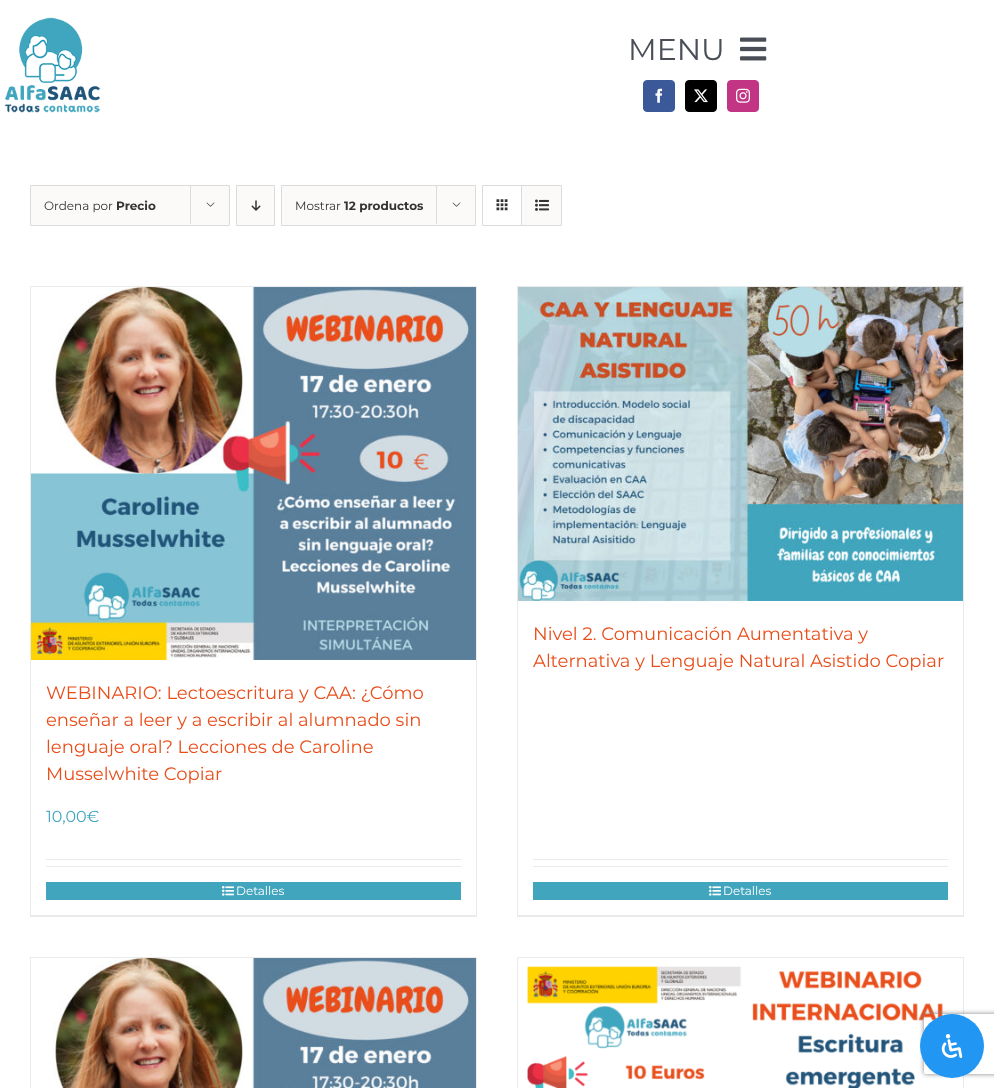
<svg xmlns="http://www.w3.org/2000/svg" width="994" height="1088">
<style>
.a{font:30px Montserrat;fill:#4a4e57}
.b{font:12px Montserrat;fill:#333}
.c{font:bold 12px Montserrat;fill:#333}
.d{font:18px Montserrat;fill:#e94e1a}
.e{font:16px Montserrat;fill:#40a5be}
.f{font:12px Montserrat;fill:#fff}
</style>
<defs>
<clipPath id="clip1"><path d="M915 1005h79v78h-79zm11 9h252c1 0 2 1 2 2v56c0 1-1 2-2 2h-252c-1 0-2-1-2-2v-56c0-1 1-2 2-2z" clip-rule="evenodd"/></clipPath>
</defs>
<rect width="100%" height="100%" fill="#fff"/>
<image href="1.png" x="4" y="17" width="96" height="96"/>
<image href="2.png" x="740" y="37" width="27" height="24"/>
<rect fill="#3b5998" stroke="#3b5998" x="643.5" y="80.5" width="31" height="31" rx="3.5"/>
<image href="3.png" x="655" y="88" width="8" height="15"/>
<rect fill="#000" stroke="#000" x="685.5" y="80.5" width="31" height="31" rx="3.5"/>
<image href="4.png" x="694" y="89" width="14" height="14"/>
<rect fill="#c13584" stroke="#c13584" x="727.5" y="80.5" width="31" height="31" rx="3.5"/>
<image href="5.png" x="736" y="88" width="14" height="15"/>
<path fill="#fbfaf9" stroke="#dbdbdb" d="M30.5 185.5h199v40H30.5z"/>
<path fill="#dbdbdb" d="M190 185h1v39H190z"/>
<image href="6.png" x="206" y="202" width="9" height="5"/>
<path fill="#fbfaf9" stroke="#dbdbdb" d="M236.5 185.5h38v40H236.5z"/>
<image href="7.png" x="251" y="200" width="10" height="11"/>
<path fill="#fbfaf9" stroke="#dbdbdb" d="M281.5 185.5h194v40H281.5z"/>
<path fill="#dbdbdb" d="M436 185h1v39H436z"/>
<image href="6.png" x="452" y="202" width="9" height="5"/>
<path fill="none" stroke="#dbdbdb" d="M482.5 185.5h79v40H482.5z"/>
<path fill="#dbdbdb" d="M521 186h1v39H521z"/>
<image href="8.png" x="496" y="199" width="12" height="12"/>
<path fill="#fbfaf9" d="M522 186h39v39H522z"/>
<image href="9.png" x="535" y="199" width="14" height="12"/>
<path fill="#ebeaea" d="M30 286h447v1H30z"/>
<path fill="#ebeaea" d="M476 286h1v631H476z"/>
<path fill="#ebeaea" d="M30 915h447v2H30z"/>
<path fill="#ebeaea" d="M30 286h1v631H30z"/>
<image href="10.png" x="31" y="287" width="445" height="373"/>
<path fill="#ebeaea" d="M46 859h415v1H46z"/>
<path fill="#ebeaea" d="M46 866h415v1H46z"/>
<path fill="#41a5bd" d="M46 882h415v18H46z"/>
<image href="11.png" x="222" y="886" width="12" height="10"/>
<path fill="#ebeaea" d="M517 286h447v1H517z"/>
<path fill="#ebeaea" d="M963 286h1v631H963z"/>
<path fill="#ebeaea" d="M517 915h447v2H517z"/>
<path fill="#ebeaea" d="M517 286h1v631H517z"/>
<image href="12.png" x="518" y="287" width="445" height="314"/>
<path fill="#ebeaea" d="M533 859h415v1H533z"/>
<path fill="#ebeaea" d="M533 866h415v1H533z"/>
<path fill="#41a5bd" d="M533 882h415v18H533z"/>
<image href="11.png" x="709" y="886" width="12" height="10"/>
<path fill="#ebeaea" d="M30 957h447v1H30z"/>
<path fill="#ebeaea" d="M476 957h1v131H476z"/>
<path fill="#ebeaea" d="M30 957h1v131H30z"/>
<image href="13.png" x="53" y="958" width="423" height="130"/>
<path fill="#ebeaea" d="M517 957h447v1H517z"/>
<path fill="#ebeaea" d="M963 957h1v131H963z"/>
<path fill="#ebeaea" d="M517 957h1v131H517z"/>
<image href="14.png" x="527" y="966" width="423" height="122"/>
<g clip-path="url(#clip1)">
<rect fill="#808080" filter="blur(2.5px)" x="924" y="1014" width="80" height="60" rx="2"/>
</g>
<circle fill="#2196f3" cx="952" cy="1046" r="32"/>
<image href="15.png" x="941" y="1034" width="22" height="24"/>
<text class="a" x="628" y="60">MENU</text>
<text class="b" x="44" y="210">Ordena por</text>
<text class="c" x="116" y="210">Precio</text>
<text class="b" x="295" y="210">Mostrar</text>
<text class="c" x="344" y="210">12 productos</text>
<text class="d" x="46" y="699">WEBINARIO: Lectoescritura y CAA: ¿Cómo</text>
<text class="d" x="46" y="726">enseñar a leer y a escribir al alumnado sin</text>
<text class="d" x="46" y="753">lenguaje oral? Lecciones de Caroline</text>
<text class="d" x="46" y="780">Musselwhite Copiar</text>
<text class="e" x="46" y="822">10,00€</text>
<text class="f" x="236" y="895">Detalles</text>
<text class="d" x="533" y="640">Nivel 2. Comunicación Aumentativa y</text>
<text class="d" x="533" y="667">Alternativa y Lenguaje Natural Asistido Copiar</text>
<text class="f" x="723" y="895">Detalles</text>
</svg>
